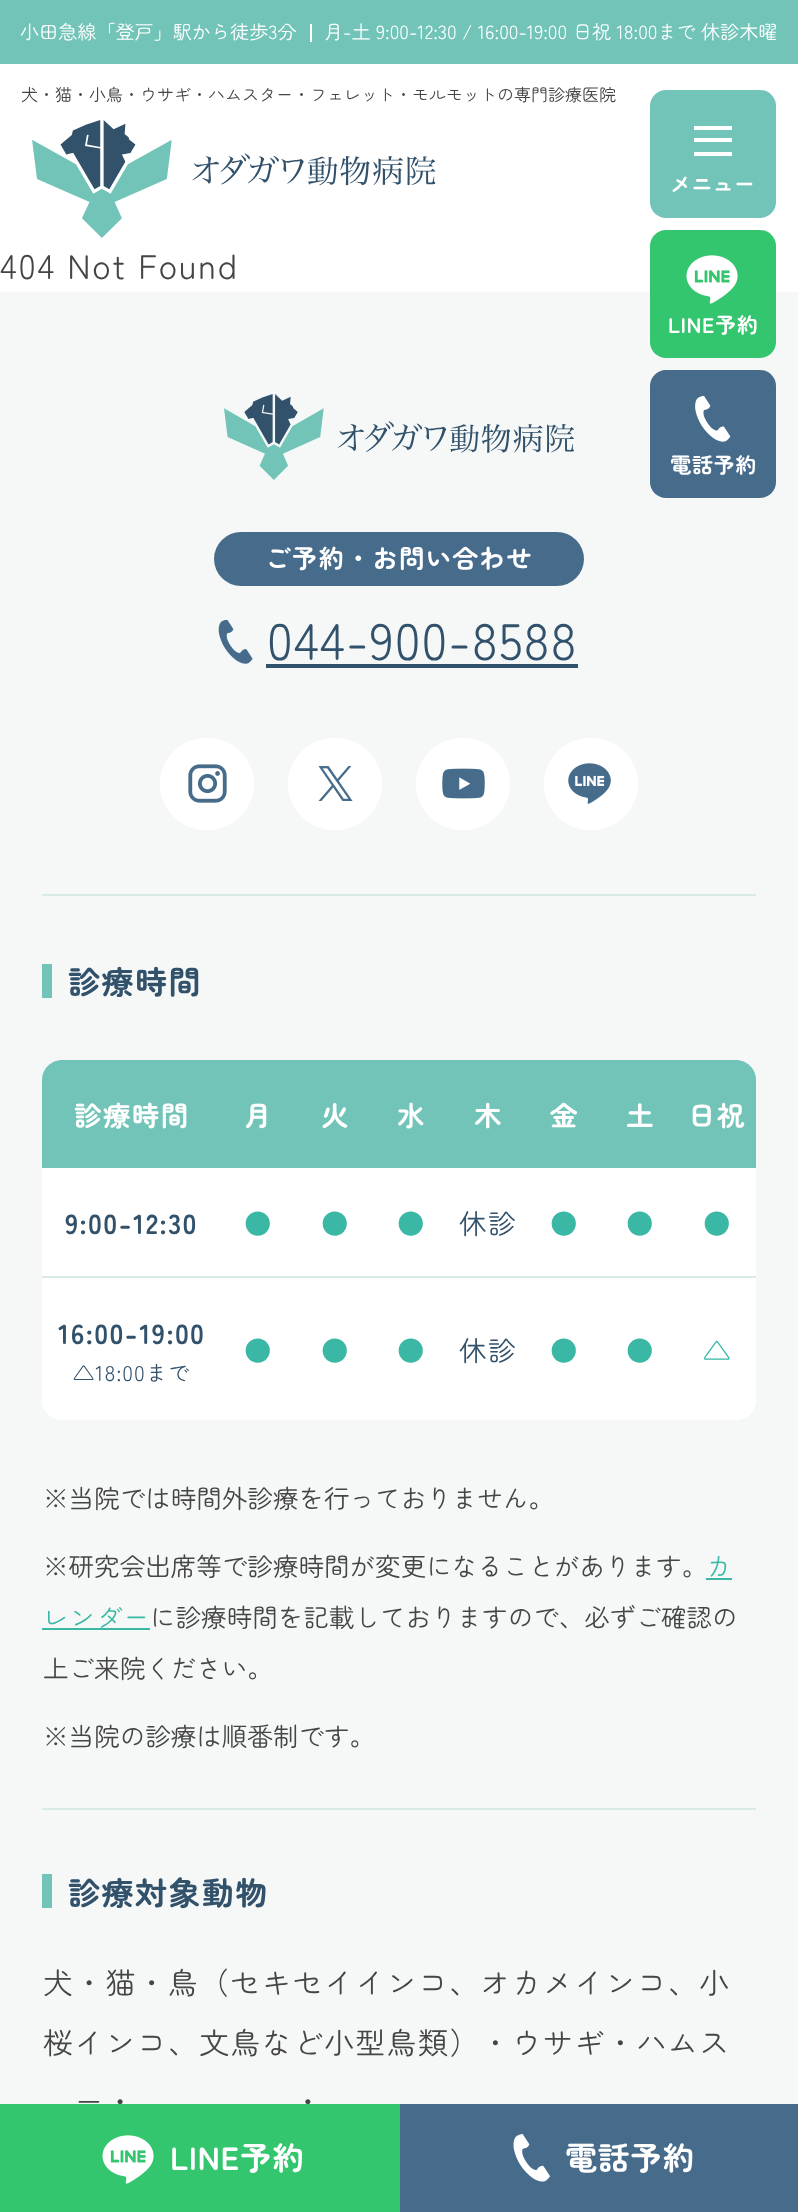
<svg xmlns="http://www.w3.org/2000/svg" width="798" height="2212">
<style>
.a{font:19.1px Zen Maru Gothic;fill:#fff}
.b{font:17px Zen Maru Gothic;fill:#454545}
.c{font:bold 21.25px Zen Maru Gothic;letter-spacing:0.5px;fill:#fff}
.d{font:bold 21.25px Zen Maru Gothic;fill:#fff}
.e{font:34px Zen Maru Gothic;letter-spacing:1.75px;fill:#454545}
.f{font:bold 25.55px Zen Maru Gothic;letter-spacing:1.25px;fill:#fff}
.g{font:51px Zen Maru Gothic;letter-spacing:1px;fill:#32516b}
.h{font:bold 32px Zen Maru Gothic;letter-spacing:1.5px;fill:#32516b}
.i{font:bold 27.5px Zen Maru Gothic;letter-spacing:1.4px;fill:#fff}
.j{font:bold 27.5px Zen Maru Gothic;letter-spacing:1.4px;fill:#32516b}
.k{font:27.5px Zen Maru Gothic;letter-spacing:1.4px;fill:#3ab8a5}
.l{font:27.5px Zen Maru Gothic;letter-spacing:1.4px;fill:#32516b}
.m{font:21.25px Zen Maru Gothic;letter-spacing:1px;fill:#32516b}
.n{font:25.55px Zen Maru Gothic;fill:#454545}
.o{font:25.55px Zen Maru Gothic;letter-spacing:1.25px;fill:#3ab8a5}
.p{font:29.75px Zen Maru Gothic;letter-spacing:1.5px;fill:#454545}
.q{font:bold 32px Zen Maru Gothic;letter-spacing:0.5px;fill:#fff}
</style>
<rect width="100%" height="100%" fill="#fff"/>
<path fill="#71c4b7" d="M0 0h798v64H0z"/>
<path fill="#fff" d="M310 24h2v18H310z"/>
<image href="1.png" x="32" y="120" width="404" height="118"/>
<path fill="#f6f8f8" d="M0 292h798v1812H0z"/>
<rect fill="#34c56f" x="650" y="230" width="126" height="128" rx="16"/>
<image href="2.png" x="686" y="255" width="52" height="49"/>
<rect fill="#466b8b" x="650" y="370" width="126" height="128" rx="16"/>
<image href="3.png" x="695" y="396" width="36" height="46"/>
<rect fill="#71c4b7" x="650" y="90" width="126" height="128" rx="16"/>
<path fill="#fff" d="M694 126h38v4H694z"/>
<path fill="#fff" d="M694 138h38v4H694z"/>
<path fill="#fff" d="M694 152h38v4H694z"/>
<image href="4.png" x="224" y="394" width="350" height="86"/>
<rect fill="#466b8b" x="214" y="532" width="370" height="54" rx="27"/>
<image href="5.png" x="218" y="620" width="35" height="44"/>
<path fill="#32516b" d="M266 664h312v4H266z"/>
<rect fill="#fff" x="160" y="738" width="94" height="92" rx="46"/>
<image href="6.png" x="188" y="764" width="39" height="39"/>
<rect fill="#fff" x="288" y="738" width="94" height="92" rx="46"/>
<image href="7.png" x="318" y="766" width="35" height="35"/>
<rect fill="#fff" x="416" y="738" width="94" height="92" rx="46"/>
<image href="8.png" x="442" y="768" width="43" height="31"/>
<rect fill="#fff" x="544" y="738" width="94" height="92" rx="46"/>
<image href="9.png" x="568" y="763" width="43" height="41"/>
<path fill="#d8ebe8" d="M42 894h714v2H42z"/>
<path fill="#71c4b7" d="M42 964h10v34H42z"/>
<path fill="#71c4b7" d="M62 1060h674c11 0 20 9 20 20v88h-714v-88c0-11 9-20 20-20z"/>
<path fill="#fff" d="M42 1168h714v232c0 11-9 20-20 20h-674c-11 0-20-9-20-20z"/>
<path fill="#d8ebe8" d="M42 1276h714v2H42z"/>
<path fill="#3ab8a5" d="M706 1578h26v2H706z"/>
<path fill="#3ab8a5" d="M42 1628h108v2H42z"/>
<path fill="#d8ebe8" d="M42 1808h714v2H42z"/>
<path fill="#71c4b7" d="M42 1874h10v34H42z"/>
<path fill="#466b8b" d="M400 2104h398v108H400z"/>
<image href="10.png" x="513" y="2134" width="37" height="48"/>
<text class="a" x="20" y="39">小田急線「登戸」駅から徒歩3分</text>
<text class="a" x="324" y="39">月-土 9:00-12:30 / 16:00-19:00</text>
<text class="a" x="573" y="39">日祝 18:00まで 休診木曜</text>
<text class="b" x="21" y="101">犬・猫・小鳥・ウサギ・ハムスター・フェレット・モルモットの専門診療医院</text>
<text class="c" x="668" y="333">LINE予約</text>
<text class="c" x="670" y="473">電話予約</text>
<text class="d" x="670" y="192">メニュー</text>
<text class="e" x="0" y="279">404 Not Found</text>
<text class="f" x="265" y="568">ご予約・お問い合わせ</text>
<text class="g" x="267" y="660">044-900-8588</text>
<text class="h" x="68" y="994">診療時間</text>
<text class="i" x="74" y="1126">診療時間</text>
<text class="i" x="244" y="1126">月</text>
<text class="i" x="321" y="1126">火</text>
<text class="i" x="397" y="1126">水</text>
<text class="i" x="474" y="1126">木</text>
<text class="i" x="550" y="1126">金</text>
<text class="i" x="626" y="1126">土</text>
<text class="i" x="688" y="1126">日祝</text>
<text class="j" x="65" y="1234">9:00-12:30</text>
<text class="k" x="244" y="1234">●</text>
<text class="k" x="321" y="1234">●</text>
<text class="k" x="397" y="1234">●</text>
<text class="l" x="459" y="1234">休診</text>
<text class="k" x="550" y="1234">●</text>
<text class="k" x="626" y="1234">●</text>
<text class="k" x="703" y="1234">●</text>
<text class="j" x="58" y="1344">16:00-19:00</text>
<text class="m" x="73" y="1381">△18:00まで</text>
<text class="k" x="244" y="1361">●</text>
<text class="k" x="321" y="1361">●</text>
<text class="k" x="397" y="1361">●</text>
<text class="l" x="459" y="1361">休診</text>
<text class="k" x="550" y="1361">●</text>
<text class="k" x="626" y="1361">●</text>
<text class="k" x="703" y="1361">△</text>
<text class="n" x="43" y="1508">※当院では時間外診療を行っておりません。</text>
<text class="n" x="43" y="1576">※研究会出席等で診療時間が変更になることがあります。</text>
<text class="o" x="706" y="1576">カ</text>
<text class="o" x="43" y="1627">レンダー</text>
<text class="n" x="150" y="1627">に診療時間を記載しておりますので、必ずご確認の</text>
<text class="n" x="43" y="1678">上ご来院ください。</text>
<text class="n" x="43" y="1746">※当院の診療は順番制です。</text>
<text class="h" x="68" y="1905">診療対象動物</text>
<text class="p" x="43" y="1994">犬・猫・鳥（セキセイインコ、オカメインコ、小</text>
<text class="p" x="43" y="2054">桜インコ、文鳥など小型鳥類）・ウサギ・ハムス</text>
<text class="p" x="74" y="2113">ー・</text>
<text class="p" x="293" y="2113">・</text>
<path fill="#34c56f" d="M0 2104h400v108H0z"/>
<image href="2.png" x="102" y="2135" width="52" height="49"/>
<text class="q" x="170" y="2170">LINE予約</text>
<text class="q" x="565" y="2170">電話予約</text>
</svg>
